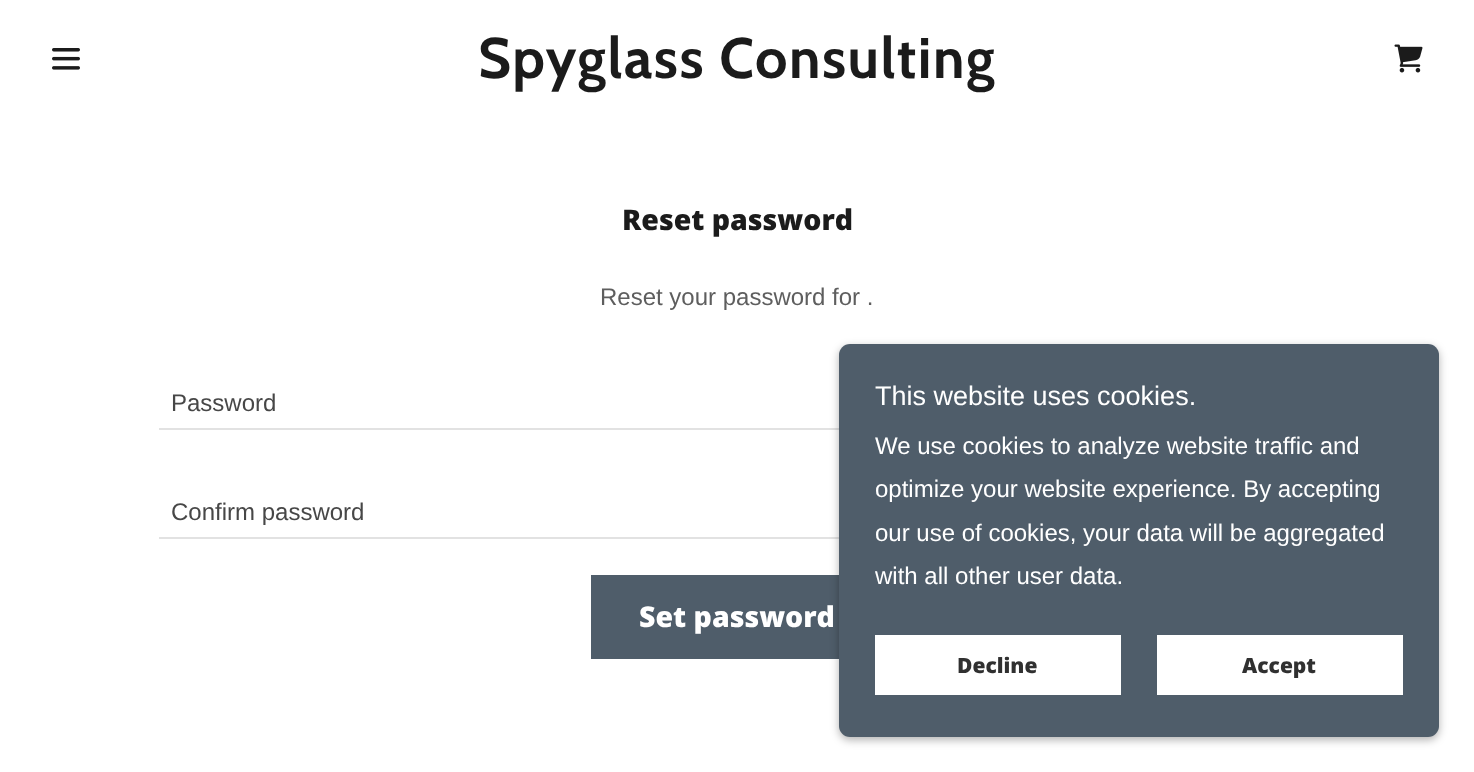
<svg xmlns="http://www.w3.org/2000/svg" width="1474" height="772">
<style>
.a{font:bold 57px Cabin;letter-spacing:1.5px;fill:#1b1b1b}
.b{font:800 28.5px Open Sans;fill:#1b1b1b}
.c{font:24px Liberation Sans;fill:#5e5e5e}
.d{font:24px Liberation Sans;fill:#474747}
.e{font:800 28.5px Open Sans;fill:#fff}
.f{font:27px Liberation Sans;fill:#fff}
.g{font:24px Liberation Sans;fill:#fff}
.h{font:800 21px Open Sans;fill:#303030}
</style>
<rect width="100%" height="100%" fill="#fff"/>
<image href="1.png" x="52" y="48" width="28" height="22"/>
<image href="2.png" x="1394" y="44" width="29" height="29"/>
<path fill="#e2e2e2" d="M159 428h680v2H159z"/>
<path fill="#e2e2e2" d="M159 537h680v2H159z"/>
<path fill="#4f5d6a" d="M591 575h248v84H591z"/>
<rect fill="#0000004d" filter="blur(4.5px)" x="839" y="347" width="600" height="393" rx="11"/>
<rect fill="#4f5d6a" x="839" y="344" width="600" height="393" rx="11"/>
<path fill="#fff" d="M875 635h246v60H875z"/>
<path fill="#fff" d="M1157 635h246v60H1157z"/>
<text class="a" x="478" y="78">Spyglass Consulting</text>
<text class="b" x="622" y="230">Reset password</text>
<text class="c" x="600" y="305">Reset your password for .</text>
<text class="d" x="171" y="411">Password</text>
<text class="d" x="171" y="520">Confirm password</text>
<text class="e" x="639" y="627">Set password</text>
<text class="f" x="875" y="405">This website uses cookies.</text>
<text class="g" x="875" y="454">We use cookies to analyze website traffic and</text>
<text class="g" x="875" y="497">optimize your website experience. By accepting</text>
<text class="g" x="875" y="541">our use of cookies, your data will be aggregated</text>
<text class="g" x="875" y="584">with all other user data.</text>
<text class="h" x="957" y="673">Decline</text>
<text class="h" x="1242" y="673">Accept</text>
</svg>
